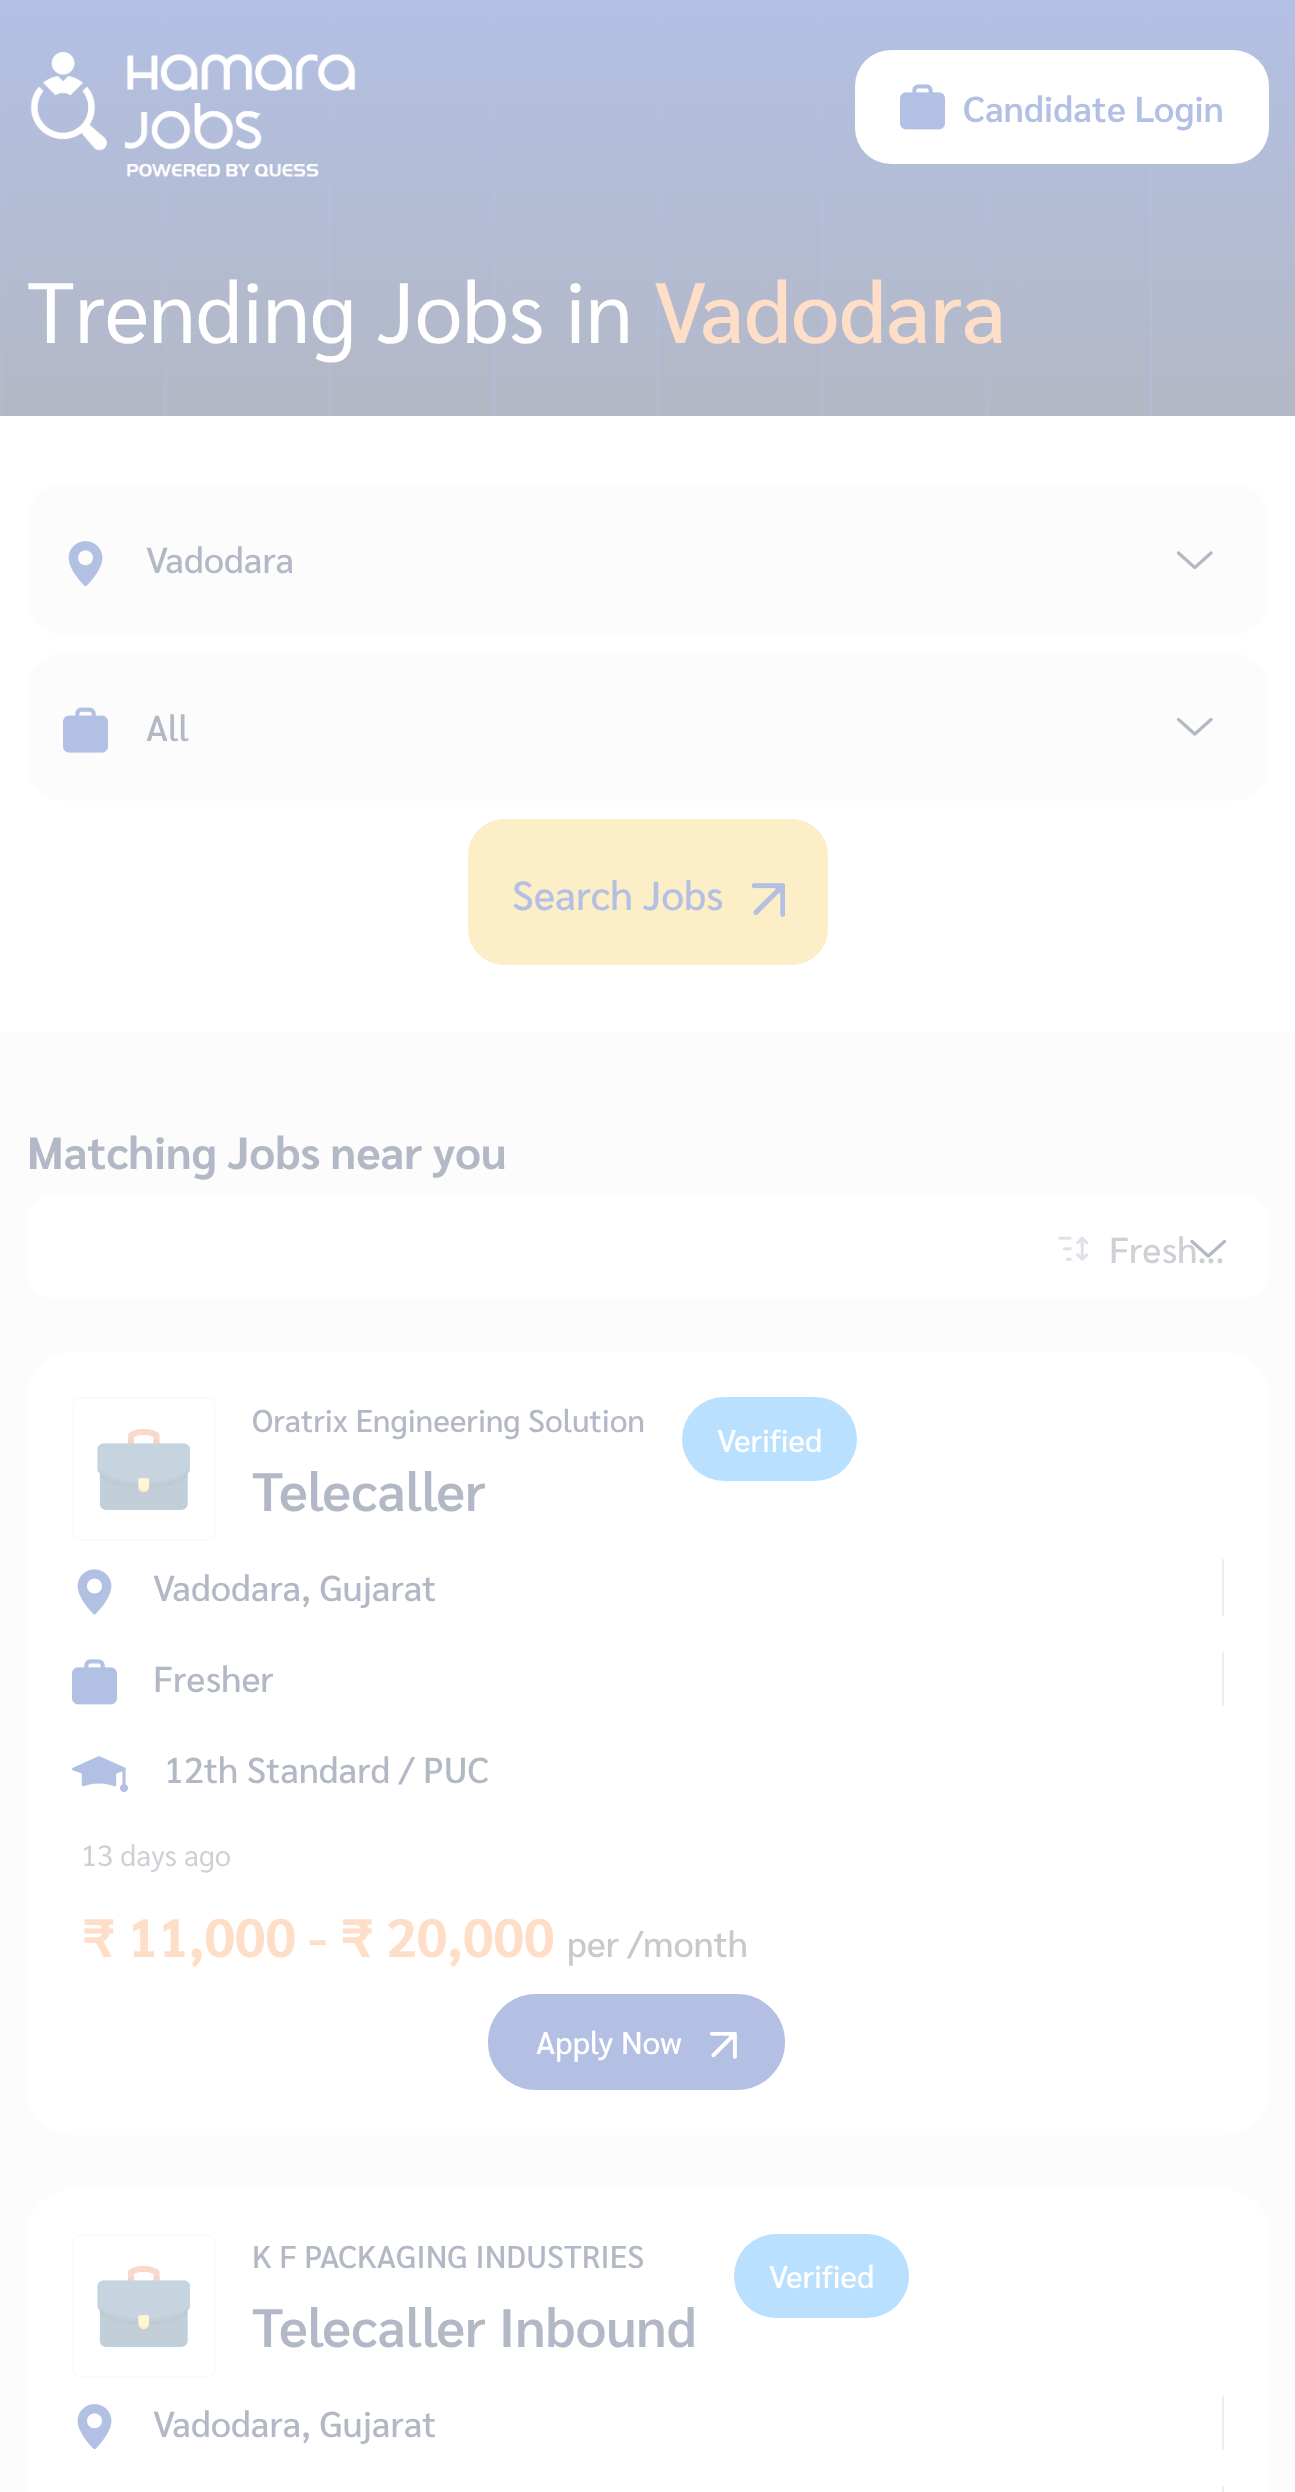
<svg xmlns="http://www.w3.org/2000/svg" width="1295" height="2492">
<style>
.a{font:600 36px Sarabun;fill:#b3c0e4}
.b{font:85.5px Sarabun;fill:#fff}
.c{font:500 85.5px Sarabun;fill:#ffdec8}
.d{font:500 36px Sarabun;fill:#b3b8c6}
.e{font:500 40.5px Sarabun;fill:#b3c0e4}
.f{font:bold 45px Sarabun;fill:#b3b8c6}
.g{font:500 36px Sarabun;fill:#cfd0d5}
.h{font:500 31.5px Sarabun;fill:#b3b8c6}
.i{font:600 54px Sarabun;fill:#b3b8c6}
.j{font:500 31.5px Sarabun;fill:#fff}
.k{font:29.25px Sarabun;fill:#cfd0d5}
.l{font:bold 54px Sarabun;fill:#ffdec8}
.m{font:500 36px Sarabun;fill:#c9c9c9}
</style>
<defs>
<linearGradient id="g1" gradientUnits="userSpaceOnUse" x1="648" y1="0" x2="648" y2="416"><stop offset="0" stop-color="#b3c0e4"/><stop offset="1" stop-color="#b3b8c5"/></linearGradient>
</defs>
<rect width="100%" height="100%" fill="#fcfcfc"/>
<path fill="url(#g1)" d="M0 0h1295v416H0z"/>
<image href="1.png" x="0" y="0" width="1295" height="416"/>
<image href="2.png" x="30" y="51" width="326" height="127"/>
<rect fill="#fff" x="855" y="50" width="414" height="114" rx="36"/>
<image href="3.png" x="900" y="84" width="45" height="46"/>
<path fill="#fff" d="M0 416h1295v617H0z"/>
<rect fill="#fcfcfc" x="27" y="484" width="1242" height="151" rx="36"/>
<image href="4.png" x="68" y="541" width="35" height="46"/>
<image href="5.png" x="1177" y="551" width="36" height="18"/>
<rect fill="#fcfcfc" x="27" y="653" width="1242" height="148" rx="36"/>
<image href="6.png" x="63" y="707" width="45" height="46"/>
<image href="7.png" x="1177" y="718" width="36" height="18"/>
<rect fill="#fceec7" x="468" y="819" width="360" height="146" rx="36"/>
<image href="8.png" x="752" y="883" width="33" height="34"/>
<rect fill="#fff" x="27" y="1195" width="1242" height="103" rx="27"/>
<image href="9.png" x="1058" y="1236" width="31" height="25"/>
<rect fill="#fff" x="27" y="1352" width="1242" height="783" rx="45"/>
<rect fill="none" stroke="#fbfbfb" stroke-width="2" x="73" y="1398" width="142" height="142" rx="8"/>
<image href="11.png" x="97" y="1429" width="93" height="81"/>
<rect fill="#bae0ff" x="682" y="1397" width="175" height="84" rx="42"/>
<path fill="#eeeeef" d="M1222 1559h2v57H1222z"/>
<image href="12.png" x="77" y="1569" width="35" height="46"/>
<path fill="#eeeeef" d="M1222 1652h2v54H1222z"/>
<image href="3.png" x="72" y="1659" width="45" height="46"/>
<image href="13.png" x="72" y="1756" width="56" height="37"/>
<rect fill="#b3c0e4" stroke="#b3c0e4" stroke-width="2" x="489" y="1995" width="295" height="94" rx="47"/>
<image href="14.png" x="709" y="2032" width="28" height="27"/>
<rect fill="#fff" x="27" y="2189" width="1242" height="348" rx="45"/>
<rect fill="none" stroke="#fbfbfb" stroke-width="2" x="73" y="2235" width="142" height="142" rx="8"/>
<image href="11.png" x="97" y="2266" width="93" height="81"/>
<rect fill="#bae0ff" x="734" y="2234" width="175" height="84" rx="42"/>
<path fill="#eeeeef" d="M1222 2396h2v54H1222z"/>
<image href="15.png" x="77" y="2404" width="35" height="46"/>
<path fill="#eeeeef" d="M1222 2486h2v6H1222z"/>
<text class="a" x="963" y="122">Candidate Login</text>
<text class="b" x="27" y="343">Trending Jobs in</text>
<text class="c" x="654" y="343">Vadodara</text>
<text class="d" x="146" y="573">Vadodara</text>
<text class="d" x="146" y="741">All</text>
<text class="e" x="512" y="910">Search Jobs</text>
<text class="f" x="27" y="1169">Matching Jobs near you</text>
<text class="g" x="1109" y="1263">Fresh…</text>
<image href="10.png" x="1190" y="1240" width="36" height="18"/>
<text class="h" x="252" y="1432">Oratrix Engineering Solution</text>
<text class="i" x="252" y="1511">Telecaller</text>
<text class="j" x="717" y="1452">Verified</text>
<text class="d" x="153" y="1601">Vadodara, Gujarat</text>
<text class="d" x="153" y="1692">Fresher</text>
<text class="d" x="164" y="1783">12th Standard / PUC</text>
<text class="k" x="81" y="1866">13 days ago</text>
<text class="l" x="81" y="1957">₹ 11,000 - ₹ 20,000</text>
<text class="m" x="567" y="1957">per /month</text>
<text class="j" x="536" y="2054">Apply Now</text>
<text class="h" x="252" y="2268">K F PACKAGING INDUSTRIES</text>
<text class="i" x="252" y="2347">Telecaller Inbound</text>
<text class="j" x="769" y="2288">Verified</text>
<text class="d" x="153" y="2437">Vadodara, Gujarat</text>
</svg>
